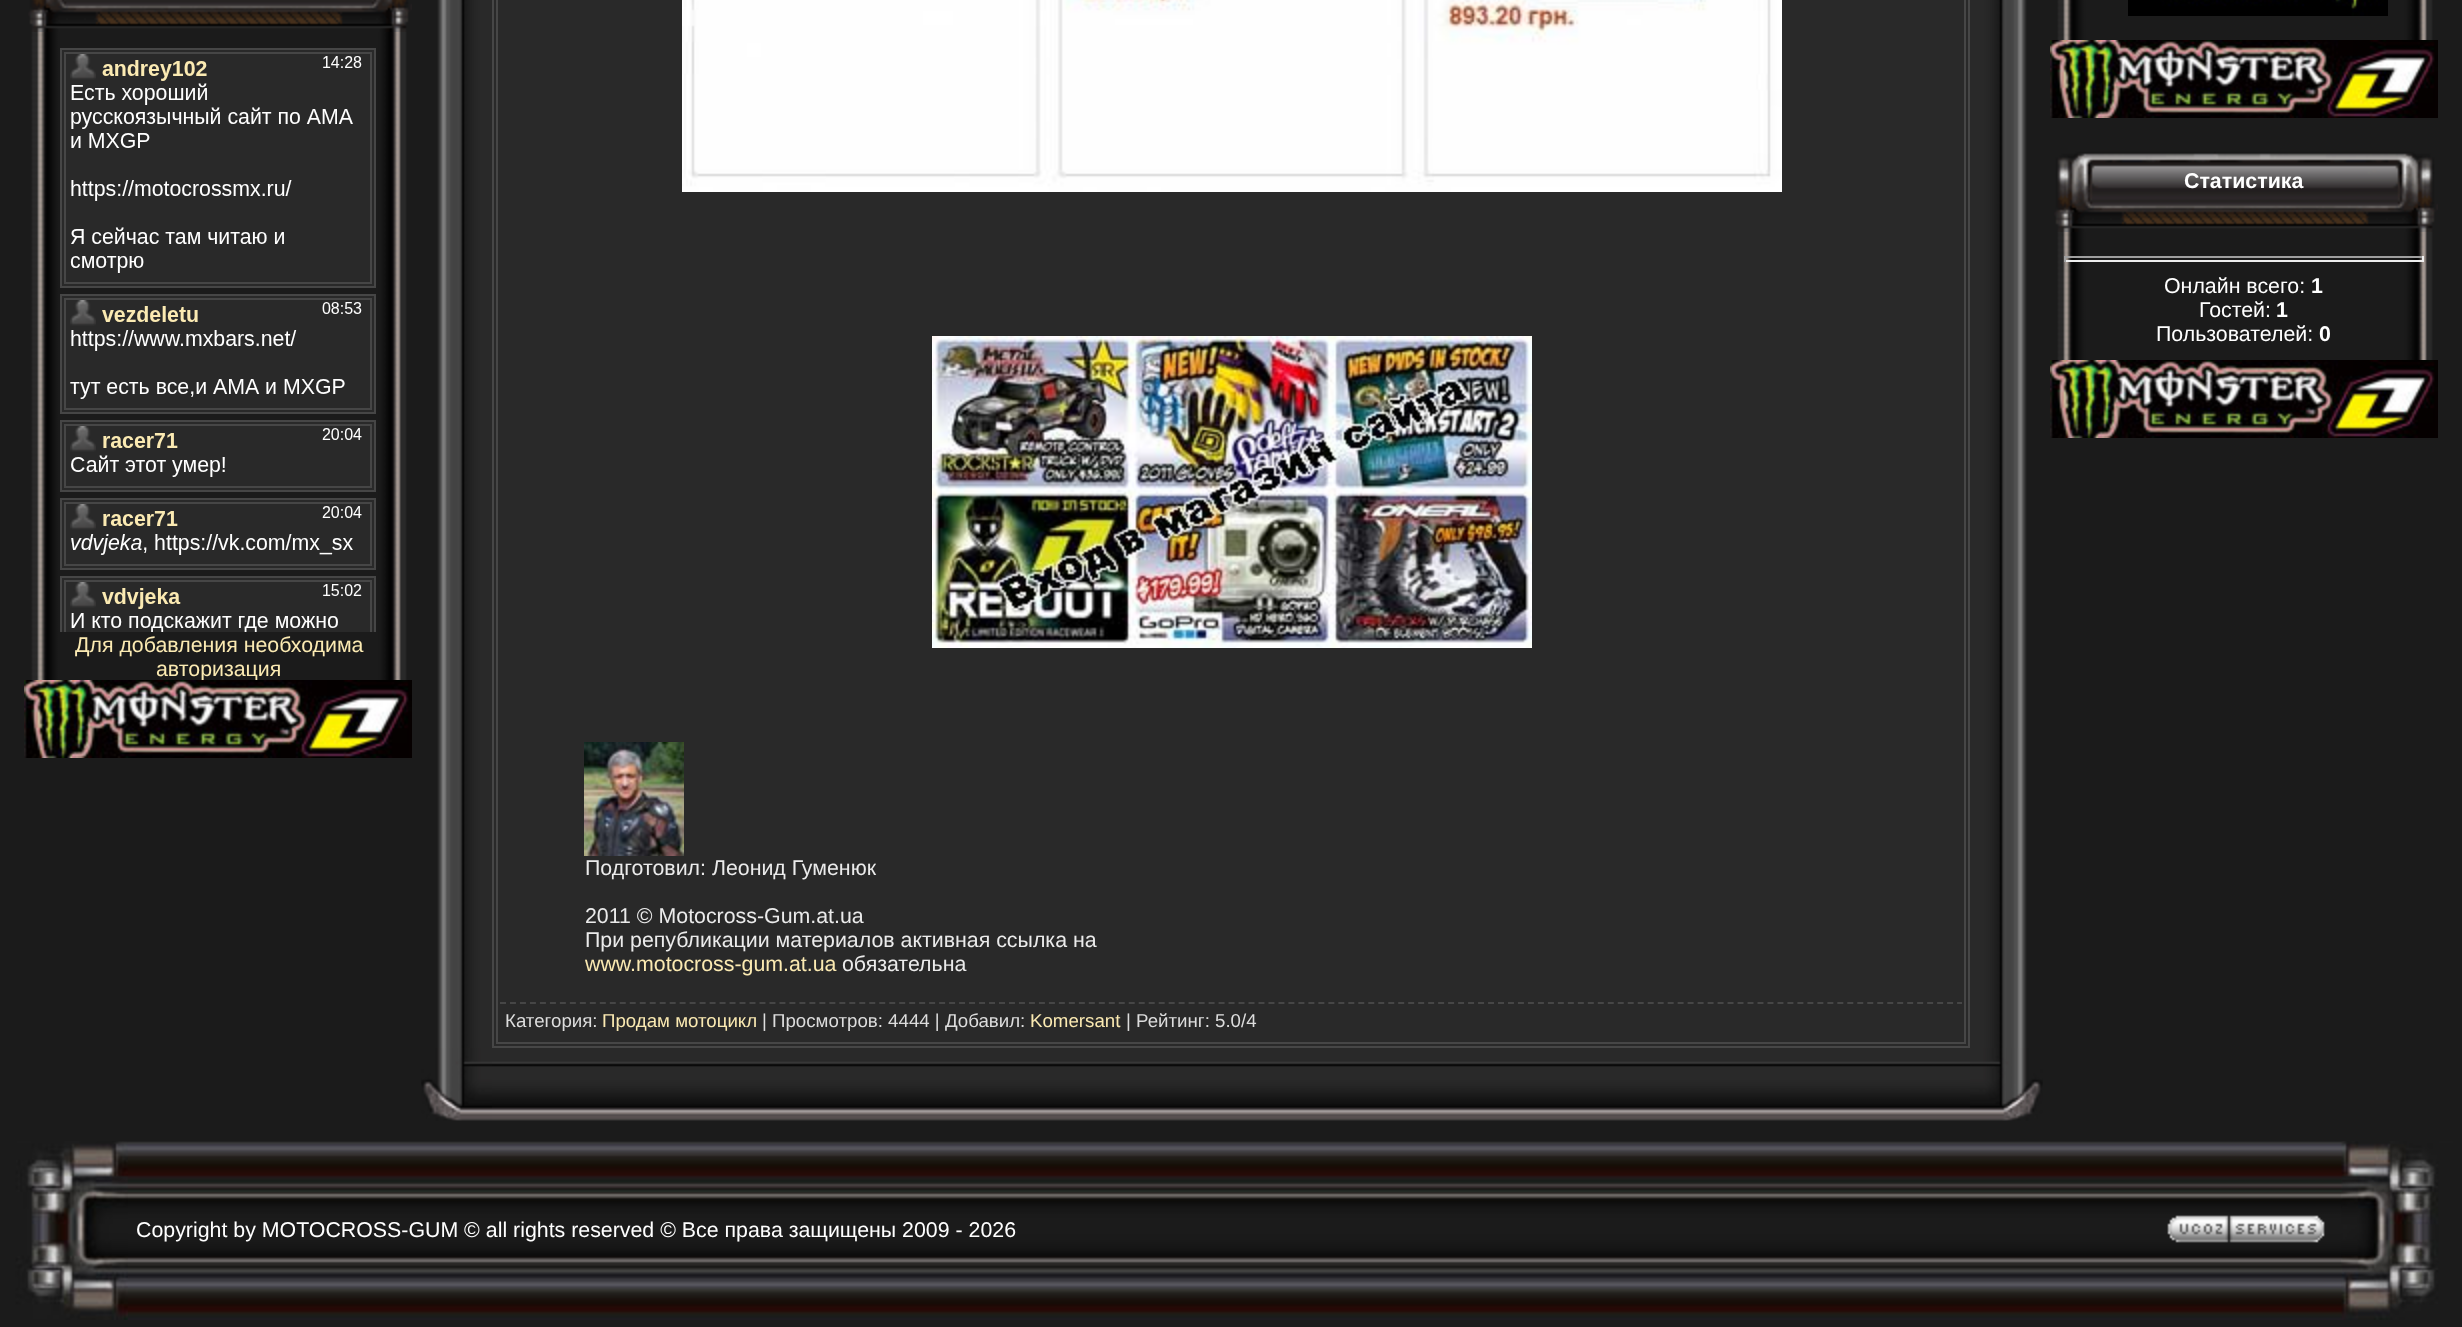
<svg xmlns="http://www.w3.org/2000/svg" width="2462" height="1327">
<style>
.a{font:bold 21.35px Liberation Sans;fill:#fff}
.b{font:21.35px Liberation Sans;fill:#fff}
.c{font:21.35px Liberation Sans;fill:#fbeab2}
.d{font:21.35px Liberation Sans;fill:#ebebeb}
.e{font:18.7px Liberation Sans;fill:#ddd}
.f{font:18.7px Liberation Sans;fill:#fbeab2}
</style>
<rect width="100%" height="100%" fill="#1b1b1b"/>
<image href="1.png" x="2050" y="0" width="388" height="40"/>
<image href="2.png" x="2128" y="0" width="260" height="16"/>
<image href="3.png" x="2050" y="40" width="388" height="78"/>
<image href="4.png" x="2050" y="142" width="388" height="218"/>
<image href="5.png" x="2054" y="142" width="384" height="90"/>
<path fill="#9f9f9f" d="M2064 256h360v2H2064z"/>
<path fill="#eee" d="M2422 256h2v6H2422z"/>
<path fill="#eee" d="M2064 260h360v2H2064z"/>
<path fill="#9f9f9f" d="M2064 256h2v6H2064z"/>
<image href="3.png" x="2050" y="360" width="388" height="78"/>
<image href="6.png" x="24" y="0" width="388" height="680"/>
<image href="7.png" x="28" y="0" width="384" height="32"/>
<image href="8.png" x="60" y="48" width="316" height="584"/>
<image href="9.png" x="437" y="0" width="55" height="1048"/>
<path fill="#292929" stroke="#464646" stroke-width="2" d="M493 -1h1476v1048H493z"/>
<path fill="none" stroke="#464646" stroke-width="2" d="M497 -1h1468v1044H497z"/>
<image href="10.png" x="682" y="0" width="1100" height="192"/>
<image href="11.png" x="932" y="336" width="600" height="312"/>
<image href="12.png" x="584" y="742" width="100" height="114"/>
<path fill="none" stroke="#464646" stroke-width="2" stroke-dasharray="6 3.98" d="M500 1003h1462"/>
<image href="13.png" x="1970" y="0" width="57" height="1048"/>
<image href="14.png" x="421" y="1048" width="71" height="73"/>
<image href="15.png" x="492" y="1048" width="1478" height="73"/>
<image href="16.png" x="1970" y="1048" width="73" height="73"/>
<image href="17.png" x="128" y="1141" width="2213" height="179"/>
<image href="18.png" x="0" y="1141" width="128" height="179"/>
<image href="19.png" x="2167" y="1215" width="158" height="28"/>
<image href="20.png" x="2341" y="1141" width="121" height="179"/>
<text class="a" x="2184" y="188">Статистика</text>
<text class="b" x="2164" y="293">Онлайн всего:</text>
<text class="a" x="2311" y="293">1</text>
<text class="b" x="2199" y="317">Гостей:</text>
<text class="a" x="2276" y="317">1</text>
<text class="b" x="2156" y="341">Пользователей:</text>
<text class="a" x="2319" y="341">0</text>
<text class="c" x="75" y="652">Для добавления необходима</text>
<text class="c" x="156" y="676">авторизация</text>
<image href="3.png" x="24" y="680" width="388" height="78"/>
<text class="d" x="585" y="875">Подготовил: Леонид Гуменюк</text>
<text class="d" x="585" y="923">2011 © Motocross-Gum.at.ua</text>
<text class="d" x="585" y="947">При републикации материалов активная ссылка на</text>
<text class="c" x="585" y="971">www.motocross-gum.at.ua</text>
<text class="d" x="842" y="971">обязательна</text>
<text class="e" x="505" y="1027">Категория:</text>
<text class="f" x="602" y="1027">Продам мотоцикл</text>
<text class="e" x="762" y="1027">| Просмотров: 4444 | Добавил:</text>
<text class="f" x="1030" y="1027">Komersant</text>
<text class="e" x="1126" y="1027">| Рейтинг: 5.0/4</text>
<text class="b" x="136" y="1237">Copyright by MOTOCROSS-GUM © all rights reserved © Все права защищены 2009 - 2026</text>
</svg>
